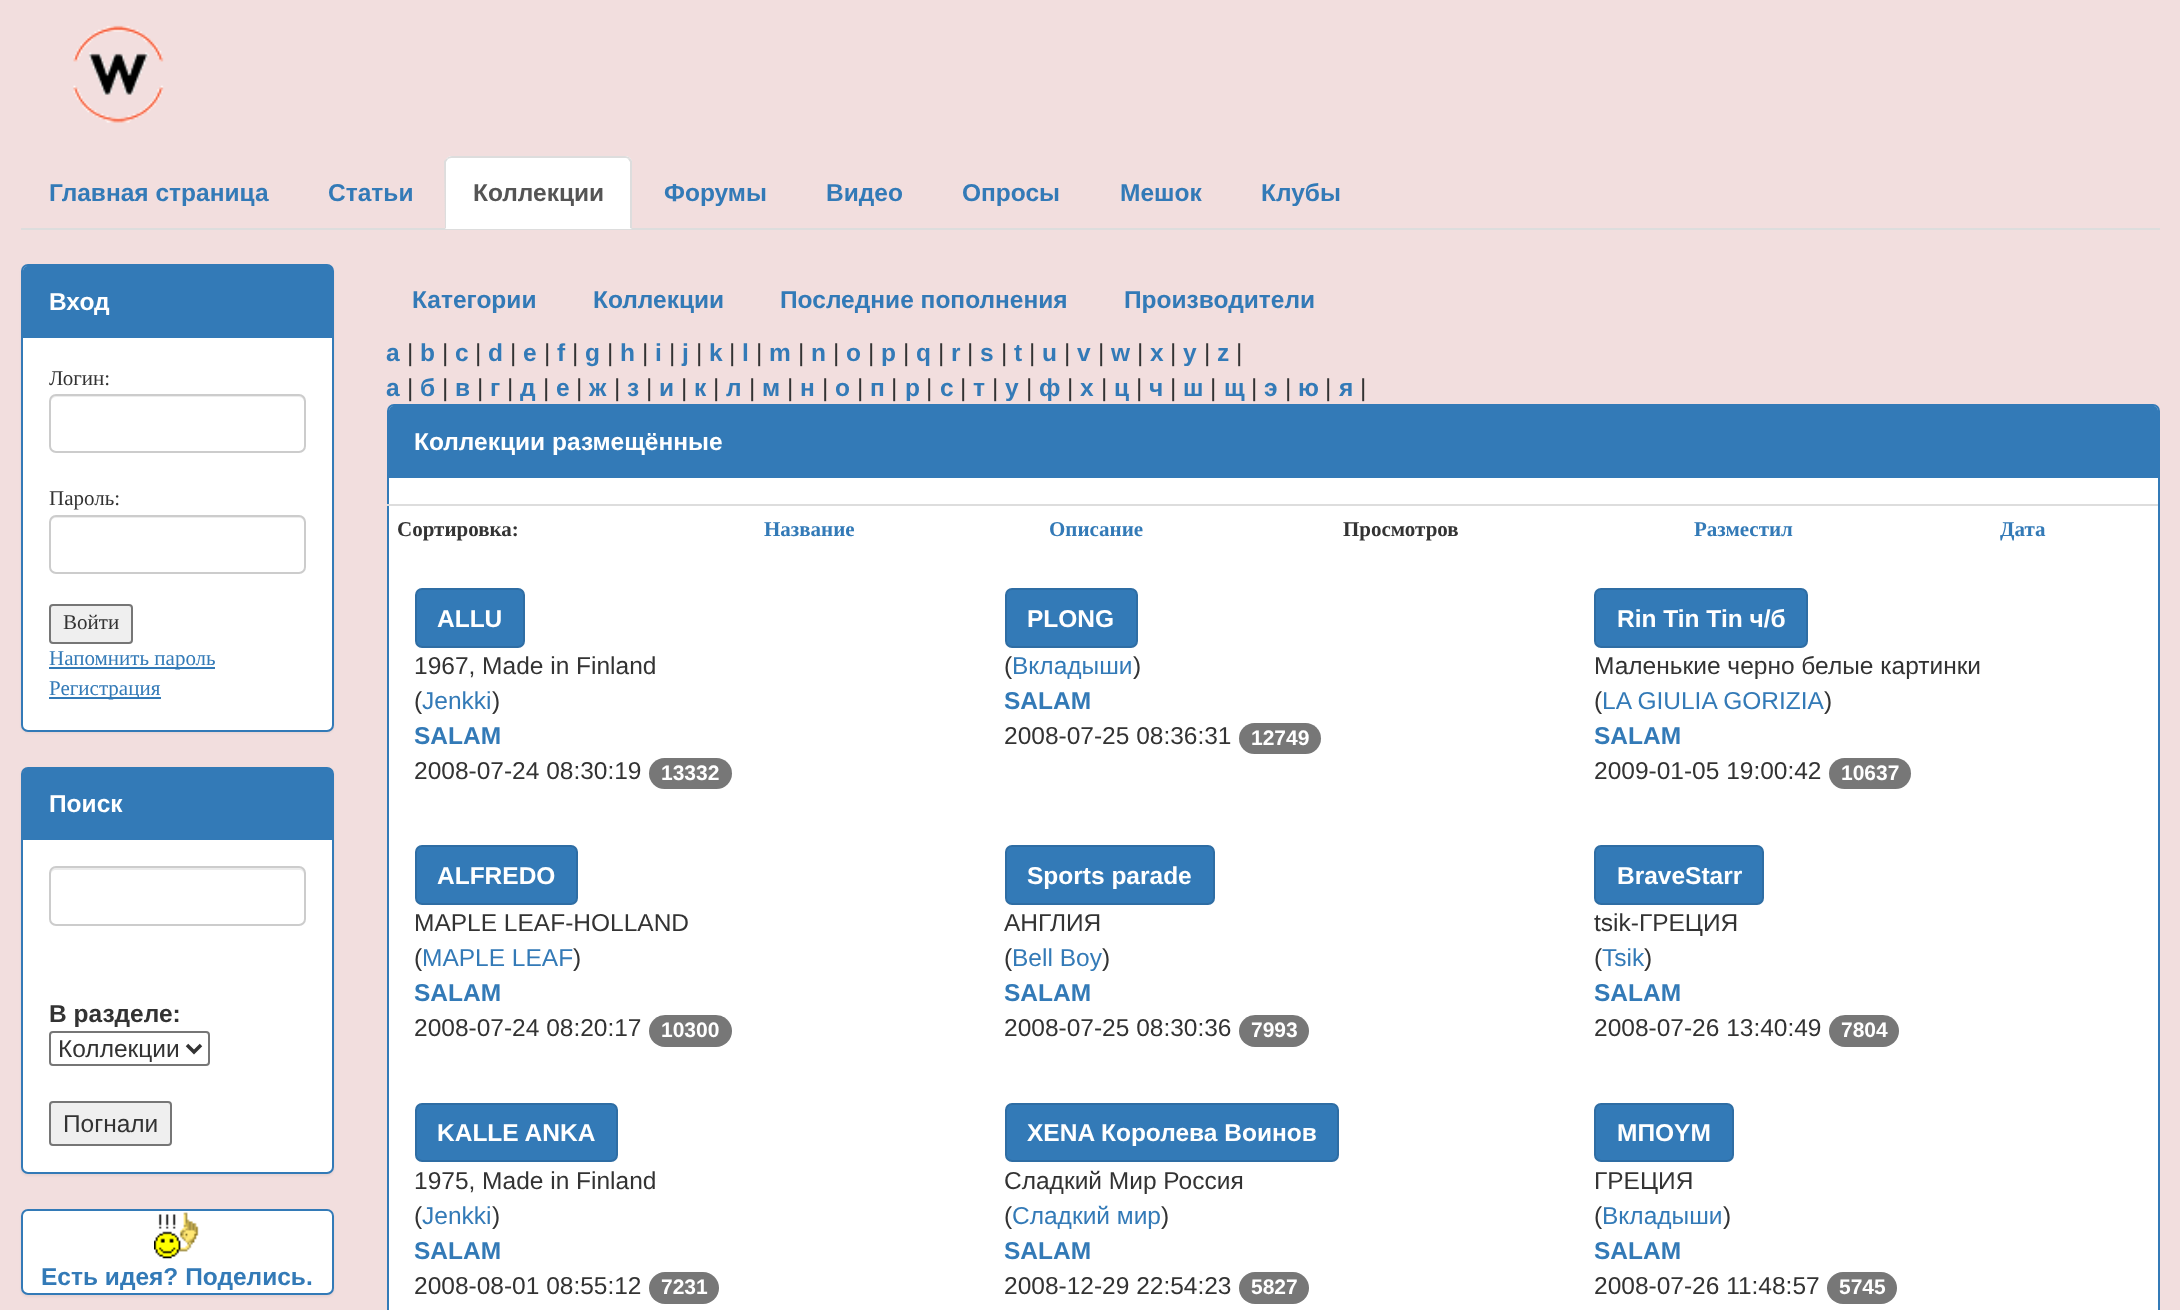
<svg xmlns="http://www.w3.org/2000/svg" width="2180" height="1310">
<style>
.a{font:bold 24.5px Liberation Sans;fill:#337ab7}
.b{font:bold 24.5px Liberation Sans;fill:#555}
.c{font:bold 24.5px Liberation Sans;fill:#fff}
.d{font:21px Liberation Serif;fill:#333}
.e{font:21px Liberation Serif;fill:#337ab7}
.f{font:bold 24.5px Liberation Sans;fill:#333}
.g{font:24.5px Liberation Sans;fill:#333}
.h{font:bold 21px Liberation Serif;fill:#333}
.i{font:bold 21px Liberation Serif;fill:#337ab7}
.j{font:24.5px Liberation Sans;fill:#337ab7}
.k{font:bold 21px Liberation Sans;fill:#fff}
</style>
<rect width="100%" height="100%" fill="#f2dede"/>
<image href="1.png" x="73" y="25" width="91" height="98"/>
<path fill="#ddd" d="M21 228h2139v2H21z"/>
<path fill="#fff" d="M452 156h173c4 0 7 3 7 7v66h-187v-66c0-4 3-7 7-7z"/>
<path fill="#ddd" d="M452 156c-2 0-4 1-5 2l1 1c1-1 3-1 4-1h173c1 0 3 0 3 1l2-1c-1-1-3-2-5-2z"/>
<path fill="#ddd" d="M630 158l2 3v68l-2-1v-66l-2-3z"/>
<path fill="#ddd" d="M444 161l3-3l1 1l-2 3v66l-1 1z"/>
<rect fill="#0000000d" filter="blur(1px)" x="21" y="266" width="313" height="467" rx="7"/>
<rect fill="#fff" stroke="#337ab7" stroke-width="2" x="22" y="265" width="311" height="466" rx="6"/>
<path fill="#337ab7" d="M28 266h300c3 0 5 2 5 5v67h-310v-67c0-3 2-5 5-5z"/>
<path fill="#ececec" d="M56 397h243c3 0 5 3 5 5v46l-1 3c1-1 2-3 2-4v-46c0-3-2-5-5-5h-244c-3 0-5 2-5 5v1c0-2 2-5 5-5z"/>
<rect fill="none" stroke="#ccc" stroke-width="2" x="50" y="395" width="255" height="57" rx="6"/>
<path fill="#ececec" d="M56 518h243c3 0 5 2 5 5v47c1-1 1-2 1-3v-46c0-3-2-5-5-5h-244c-3 0-5 2-5 5v2c0-3 2-5 5-5z"/>
<rect fill="none" stroke="#ccc" stroke-width="2" x="50" y="516" width="255" height="57" rx="6"/>
<rect fill="#efefef" stroke="#767676" stroke-width="2" x="50" y="605" width="82" height="38" rx="3"/>
<path fill="#337ab7" d="M49 667h166v2H49z"/>
<path fill="#337ab7" d="M49 697h112v2H49z"/>
<rect fill="#0000000d" filter="blur(1px)" x="21" y="768" width="313" height="408" rx="7"/>
<rect fill="#fff" stroke="#337ab7" stroke-width="2" x="22" y="768" width="311" height="405" rx="6"/>
<path fill="#337ab7" d="M28 768h300c3 0 5 2 5 5v67h-310v-67c0-3 2-5 5-5z"/>
<path fill="#ececec" d="M56 870h243c3 0 5 2 5 5v45v3c0-1 1-3 1-4v-46c0-3-2-5-5-5h-244c-3 0-5 2-5 5v2c0-3 2-5 5-5z"/>
<rect fill="none" stroke="#ccc" stroke-width="2" x="50" y="867" width="255" height="58" rx="6"/>
<rect fill="none" stroke="#767676" stroke-width="2" x="50" y="1032" width="159" height="33" rx="3"/>
<path fill="none" stroke="#333" stroke-width="3.5" d="M187 1045l7 7l7-7"/>
<rect fill="#efefef" stroke="#767676" stroke-width="2" x="50" y="1102" width="121" height="43" rx="3"/>
<rect fill="#0000000d" filter="blur(1px)" x="21" y="1211" width="313" height="86" rx="7"/>
<rect fill="#fff" stroke="#337ab7" stroke-width="2" x="22" y="1210" width="311" height="84" rx="6"/>
<image href="2.png" x="154" y="1212" width="45" height="47"/>
<rect fill="#fff" stroke="#337ab7" stroke-width="2" x="388" y="405" width="1771" height="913" rx="6"/>
<path fill="#337ab7" d="M394 406h1759c3 0 5 2 5 5v67h-1769v-67c0-3 2-5 5-5z"/>
<path fill="#ddd" d="M387 504h1771v2H387z"/>
<rect fill="#337ab7" stroke="#2e6da4" stroke-width="2" x="416" y="589" width="108" height="58" rx="6"/>
<rect fill="#777" x="649" y="758" width="83" height="31" rx="15.5"/>
<rect fill="#337ab7" stroke="#2e6da4" stroke-width="2" x="1006" y="589" width="131" height="58" rx="6"/>
<rect fill="#777" x="1239" y="723" width="82" height="31" rx="15.5"/>
<rect fill="#337ab7" stroke="#2e6da4" stroke-width="2" x="1595" y="589" width="212" height="58" rx="6"/>
<rect fill="#777" x="1829" y="758" width="82" height="31" rx="15.5"/>
<rect fill="#337ab7" stroke="#2e6da4" stroke-width="2" x="416" y="846" width="161" height="58" rx="6"/>
<rect fill="#777" x="649" y="1015" width="83" height="32" rx="16"/>
<rect fill="#337ab7" stroke="#2e6da4" stroke-width="2" x="1006" y="846" width="208" height="58" rx="6"/>
<rect fill="#777" x="1239" y="1015" width="70" height="32" rx="16"/>
<rect fill="#337ab7" stroke="#2e6da4" stroke-width="2" x="1595" y="846" width="168" height="58" rx="6"/>
<rect fill="#777" x="1829" y="1015" width="70" height="32" rx="16"/>
<rect fill="#337ab7" stroke="#2e6da4" stroke-width="2" x="416" y="1104" width="201" height="57" rx="6"/>
<rect fill="#777" x="649" y="1272" width="70" height="32" rx="16"/>
<rect fill="#337ab7" stroke="#2e6da4" stroke-width="2" x="1006" y="1104" width="332" height="57" rx="6"/>
<rect fill="#777" x="1239" y="1272" width="70" height="32" rx="16"/>
<rect fill="#337ab7" stroke="#2e6da4" stroke-width="2" x="1595" y="1104" width="138" height="57" rx="6"/>
<rect fill="#777" x="1827" y="1272" width="70" height="32" rx="16"/>
<text class="a" x="49" y="201">Главная страница</text>
<text class="a" x="328" y="201">Статьи</text>
<text class="b" x="473" y="201">Коллекции</text>
<text class="a" x="664" y="201">Форумы</text>
<text class="a" x="826" y="201">Видео</text>
<text class="a" x="962" y="201">Опросы</text>
<text class="a" x="1120" y="201">Мешок</text>
<text class="a" x="1261" y="201">Клубы</text>
<text class="c" x="49" y="310">Вход</text>
<text class="d" x="49" y="385">Логин:</text>
<text class="d" x="49" y="505">Пароль:</text>
<text class="d" x="63" y="629">Войти</text>
<text class="e" x="49" y="665">Напомнить пароль</text>
<text class="e" x="49" y="695">Регистрация</text>
<text class="c" x="49" y="812">Поиск</text>
<text class="f" x="49" y="1022">В разделе:</text>
<text class="g" x="58" y="1057">Коллекции</text>
<text class="g" x="63" y="1132">Погнали</text>
<text class="a" x="41" y="1285">Есть идея? Поделись.</text>
<text class="a" x="412" y="308">Категории</text>
<text class="a" x="593" y="308">Коллекции</text>
<text class="a" x="780" y="308">Последние пополнения</text>
<text class="a" x="1124" y="308">Производители</text>
<text class="a" x="386" y="361">a</text>
<text class="g" x="407" y="361">|</text>
<text class="a" x="420" y="361">b</text>
<text class="g" x="442" y="361">|</text>
<text class="a" x="455" y="361">c</text>
<text class="g" x="475" y="361">|</text>
<text class="a" x="488" y="361">d</text>
<text class="g" x="510" y="361">|</text>
<text class="a" x="523" y="361">e</text>
<text class="g" x="544" y="361">|</text>
<text class="a" x="557" y="361">f</text>
<text class="g" x="572" y="361">|</text>
<text class="a" x="585" y="361">g</text>
<text class="g" x="607" y="361">|</text>
<text class="a" x="620" y="361">h</text>
<text class="g" x="642" y="361">|</text>
<text class="a" x="655" y="361">i</text>
<text class="g" x="669" y="361">|</text>
<text class="a" x="682" y="361">j</text>
<text class="g" x="696" y="361">|</text>
<text class="a" x="709" y="361">k</text>
<text class="g" x="729" y="361">|</text>
<text class="a" x="742" y="361">l</text>
<text class="g" x="756" y="361">|</text>
<text class="a" x="769" y="361">m</text>
<text class="g" x="798" y="361">|</text>
<text class="a" x="811" y="361">n</text>
<text class="g" x="833" y="361">|</text>
<text class="a" x="846" y="361">o</text>
<text class="g" x="868" y="361">|</text>
<text class="a" x="881" y="361">p</text>
<text class="g" x="903" y="361">|</text>
<text class="a" x="916" y="361">q</text>
<text class="g" x="938" y="361">|</text>
<text class="a" x="951" y="361">r</text>
<text class="g" x="967" y="361">|</text>
<text class="a" x="980" y="361">s</text>
<text class="g" x="1001" y="361">|</text>
<text class="a" x="1014" y="361">t</text>
<text class="g" x="1029" y="361">|</text>
<text class="a" x="1042" y="361">u</text>
<text class="g" x="1064" y="361">|</text>
<text class="a" x="1077" y="361">v</text>
<text class="g" x="1098" y="361">|</text>
<text class="a" x="1111" y="361">w</text>
<text class="g" x="1137" y="361">|</text>
<text class="a" x="1150" y="361">x</text>
<text class="g" x="1170" y="361">|</text>
<text class="a" x="1183" y="361">y</text>
<text class="g" x="1204" y="361">|</text>
<text class="a" x="1217" y="361">z</text>
<text class="g" x="1236" y="361">|</text>
<text class="a" x="386" y="396">а</text>
<text class="g" x="407" y="396">|</text>
<text class="a" x="420" y="396">б</text>
<text class="g" x="442" y="396">|</text>
<text class="a" x="455" y="396">в</text>
<text class="g" x="477" y="396">|</text>
<text class="a" x="490" y="396">г</text>
<text class="g" x="507" y="396">|</text>
<text class="a" x="520" y="396">д</text>
<text class="g" x="543" y="396">|</text>
<text class="a" x="556" y="396">е</text>
<text class="g" x="576" y="396">|</text>
<text class="a" x="589" y="396">ж</text>
<text class="g" x="614" y="396">|</text>
<text class="a" x="627" y="396">з</text>
<text class="g" x="646" y="396">|</text>
<text class="a" x="659" y="396">и</text>
<text class="g" x="681" y="396">|</text>
<text class="a" x="694" y="396">к</text>
<text class="g" x="713" y="396">|</text>
<text class="a" x="726" y="396">л</text>
<text class="g" x="749" y="396">|</text>
<text class="a" x="762" y="396">м</text>
<text class="g" x="787" y="396">|</text>
<text class="a" x="800" y="396">н</text>
<text class="g" x="822" y="396">|</text>
<text class="a" x="835" y="396">о</text>
<text class="g" x="857" y="396">|</text>
<text class="a" x="870" y="396">п</text>
<text class="g" x="891" y="396">|</text>
<text class="a" x="905" y="396">р</text>
<text class="g" x="926" y="396">|</text>
<text class="a" x="940" y="396">с</text>
<text class="g" x="960" y="396">|</text>
<text class="a" x="973" y="396">т</text>
<text class="g" x="992" y="396">|</text>
<text class="a" x="1005" y="396">у</text>
<text class="g" x="1026" y="396">|</text>
<text class="a" x="1039" y="396">ф</text>
<text class="g" x="1067" y="396">|</text>
<text class="a" x="1080" y="396">х</text>
<text class="g" x="1101" y="396">|</text>
<text class="a" x="1114" y="396">ц</text>
<text class="g" x="1136" y="396">|</text>
<text class="a" x="1149" y="396">ч</text>
<text class="g" x="1170" y="396">|</text>
<text class="a" x="1183" y="396">ш</text>
<text class="g" x="1210" y="396">|</text>
<text class="a" x="1224" y="396">щ</text>
<text class="g" x="1251" y="396">|</text>
<text class="a" x="1264" y="396">э</text>
<text class="g" x="1285" y="396">|</text>
<text class="a" x="1298" y="396">ю</text>
<text class="g" x="1325" y="396">|</text>
<text class="a" x="1339" y="396">я</text>
<text class="g" x="1360" y="396">|</text>
<text class="c" x="414" y="450">Коллекции размещённые</text>
<text class="h" x="397" y="536">Сортировка:</text>
<text class="i" x="764" y="536">Название</text>
<text class="i" x="1049" y="536">Описание</text>
<text class="h" x="1343" y="536">Просмотров</text>
<text class="i" x="1694" y="536">Разместил</text>
<text class="i" x="2000" y="536">Дата</text>
<text class="c" x="437" y="627">ALLU</text>
<text class="g" x="414" y="674">1967, Made in Finland</text>
<text class="g" x="414" y="709">(</text>
<text class="j" x="422" y="709">Jenkki</text>
<text class="g" x="492" y="709">)</text>
<text class="a" x="414" y="744">SALAM</text>
<text class="g" x="414" y="779">2008-07-24 08:30:19</text>
<text class="k" x="661" y="780">13332</text>
<text class="c" x="1027" y="627">PLONG</text>
<text class="g" x="1004" y="674">(</text>
<text class="j" x="1012" y="674">Вкладыши</text>
<text class="g" x="1133" y="674">)</text>
<text class="a" x="1004" y="709">SALAM</text>
<text class="g" x="1004" y="744">2008-07-25 08:36:31</text>
<text class="k" x="1251" y="745">12749</text>
<text class="c" x="1617" y="627">Rin Tin Tin ч/б</text>
<text class="g" x="1594" y="674">Маленькие черно белые картинки</text>
<text class="g" x="1594" y="709">(</text>
<text class="j" x="1602" y="709">LA GIULIA GORIZIA</text>
<text class="g" x="1824" y="709">)</text>
<text class="a" x="1594" y="744">SALAM</text>
<text class="g" x="1594" y="779">2009-01-05 19:00:42</text>
<text class="k" x="1841" y="780">10637</text>
<text class="c" x="437" y="884">ALFREDO</text>
<text class="g" x="414" y="931">MAPLE LEAF-HOLLAND</text>
<text class="g" x="414" y="966">(</text>
<text class="j" x="422" y="966">MAPLE LEAF</text>
<text class="g" x="573" y="966">)</text>
<text class="a" x="414" y="1001">SALAM</text>
<text class="g" x="414" y="1036">2008-07-24 08:20:17</text>
<text class="k" x="661" y="1037">10300</text>
<text class="c" x="1027" y="884">Sports parade</text>
<text class="g" x="1004" y="931">АНГЛИЯ</text>
<text class="g" x="1004" y="966">(</text>
<text class="j" x="1012" y="966">Bell Boy</text>
<text class="g" x="1102" y="966">)</text>
<text class="a" x="1004" y="1001">SALAM</text>
<text class="g" x="1004" y="1036">2008-07-25 08:30:36</text>
<text class="k" x="1251" y="1037">7993</text>
<text class="c" x="1617" y="884">BraveStarr</text>
<text class="g" x="1594" y="931">tsik-ГРЕЦИЯ</text>
<text class="g" x="1594" y="966">(</text>
<text class="j" x="1602" y="966">Tsik</text>
<text class="g" x="1644" y="966">)</text>
<text class="a" x="1594" y="1001">SALAM</text>
<text class="g" x="1594" y="1036">2008-07-26 13:40:49</text>
<text class="k" x="1841" y="1037">7804</text>
<text class="c" x="437" y="1141">KALLE ANKA</text>
<text class="g" x="414" y="1189">1975, Made in Finland</text>
<text class="g" x="414" y="1224">(</text>
<text class="j" x="422" y="1224">Jenkki</text>
<text class="g" x="492" y="1224">)</text>
<text class="a" x="414" y="1259">SALAM</text>
<text class="g" x="414" y="1294">2008-08-01 08:55:12</text>
<text class="k" x="661" y="1294">7231</text>
<text class="c" x="1027" y="1141">XENA Королева Воинов</text>
<text class="g" x="1004" y="1189">Сладкий Мир Россия</text>
<text class="g" x="1004" y="1224">(</text>
<text class="j" x="1012" y="1224">Сладкий мир</text>
<text class="g" x="1161" y="1224">)</text>
<text class="a" x="1004" y="1259">SALAM</text>
<text class="g" x="1004" y="1294">2008-12-29 22:54:23</text>
<text class="k" x="1251" y="1294">5827</text>
<text class="c" x="1617" y="1141">MПOYM</text>
<text class="g" x="1594" y="1189">ГРЕЦИЯ</text>
<text class="g" x="1594" y="1224">(</text>
<text class="j" x="1602" y="1224">Вкладыши</text>
<text class="g" x="1723" y="1224">)</text>
<text class="a" x="1594" y="1259">SALAM</text>
<text class="g" x="1594" y="1294">2008-07-26 11:48:57</text>
<text class="k" x="1839" y="1294">5745</text>
</svg>
